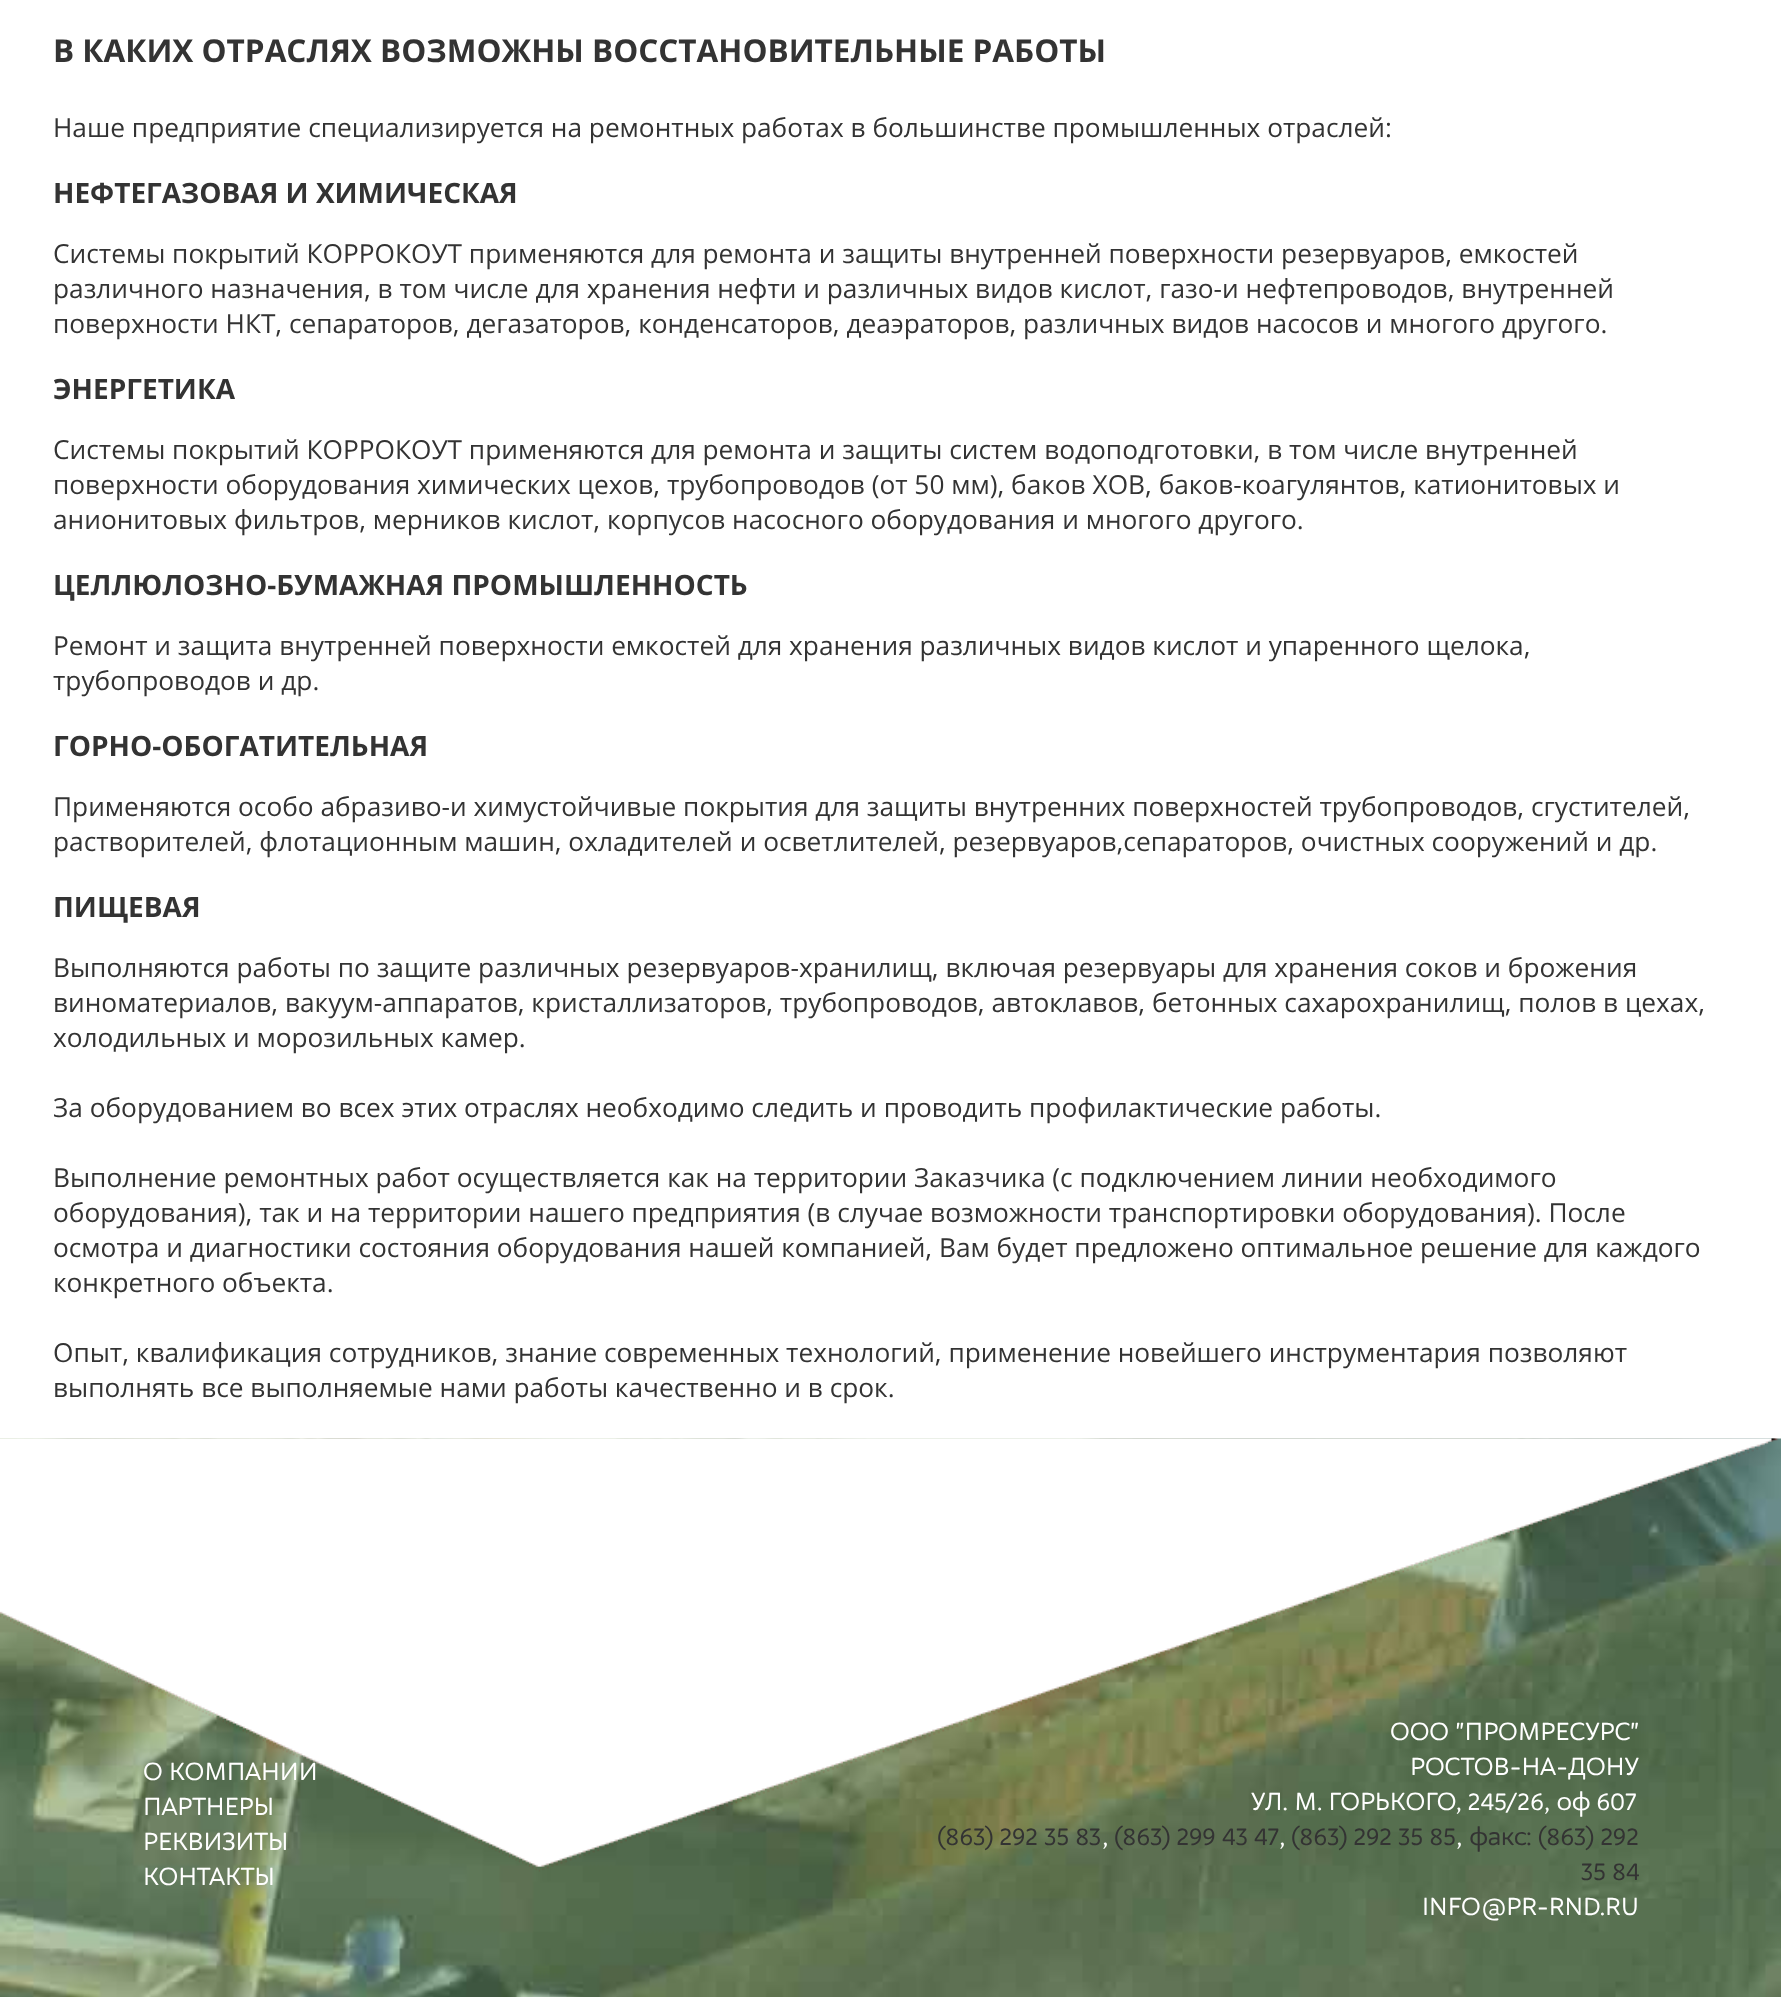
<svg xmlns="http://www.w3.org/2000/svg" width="1781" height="1997">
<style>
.a{font:bold 31.5px Open Sans;fill:#333}
.b{font:26.25px Open Sans;fill:#333}
.c{font:bold 28px Open Sans;fill:#333}
.d{font:26.25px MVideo;fill:#fff}
.e{font:26.25px MVideo;fill:#333}
</style>
<rect width="100%" height="100%" fill="#fff"/>
<image href="1.png" x="0" y="1438" width="1781" height="559"/>
<text class="a" x="53" y="62">В КАКИХ ОТРАСЛЯХ ВОЗМОЖНЫ ВОССТАНОВИТЕЛЬНЫЕ РАБОТЫ</text>
<text class="b" x="53" y="137">Наше предприятие специализируется на ремонтных работах в большинстве промышленных отраслей:</text>
<text class="c" x="53" y="203">НЕФТЕГАЗОВАЯ И ХИМИЧЕСКАЯ</text>
<text class="b" x="53" y="263">Системы покрытий КОРРОКОУТ применяются для ремонта и защиты внутренней поверхности резервуаров, емкостей</text>
<text class="b" x="53" y="298">различного назначения, в том числе для хранения нефти и различных видов кислот, газо-и нефтепроводов, внутренней</text>
<text class="b" x="53" y="333">поверхности НКТ, сепараторов, дегазаторов, конденсаторов, деаэраторов, различных видов насосов и многого другого.</text>
<text class="c" x="53" y="399">ЭНЕРГЕТИКА</text>
<text class="b" x="53" y="459">Системы покрытий КОРРОКОУТ применяются для ремонта и защиты систем водоподготовки, в том числе внутренней</text>
<text class="b" x="53" y="494">поверхности оборудования химических цехов, трубопроводов (от 50 мм), баков ХОВ, баков-коагулянтов, катионитовых и</text>
<text class="b" x="53" y="529">анионитовых фильтров, мерников кислот, корпусов насосного оборудования и многого другого.</text>
<text class="c" x="53" y="595">ЦЕЛЛЮЛОЗНО-БУМАЖНАЯ ПРОМЫШЛЕННОСТЬ</text>
<text class="b" x="53" y="655">Ремонт и защита внутренней поверхности емкостей для хранения различных видов кислот и упаренного щелока,</text>
<text class="b" x="53" y="690">трубопроводов и др.</text>
<text class="c" x="53" y="756">ГОРНО-ОБОГАТИТЕЛЬНАЯ</text>
<text class="b" x="53" y="816">Применяются особо абразиво-и химустойчивые покрытия для защиты внутренних поверхностей трубопроводов, сгустителей,</text>
<text class="b" x="53" y="851">растворителей, флотационным машин, охладителей и осветлителей, резервуаров,сепараторов, очистных сооружений и др.</text>
<text class="c" x="53" y="917">ПИЩЕВАЯ</text>
<text class="b" x="53" y="977">Выполняются работы по защите различных резервуаров-хранилищ, включая резервуары для хранения соков и брожения</text>
<text class="b" x="53" y="1012">виноматериалов, вакуум-аппаратов, кристаллизаторов, трубопроводов, автоклавов, бетонных сахарохранилищ, полов в цехах,</text>
<text class="b" x="53" y="1047">холодильных и морозильных камер.</text>
<text class="b" x="53" y="1117">За оборудованием во всех этих отраслях необходимо следить и проводить профилактические работы.</text>
<text class="b" x="53" y="1187">Выполнение ремонтных работ осуществляется как на территории Заказчика (с подключением линии необходимого</text>
<text class="b" x="53" y="1222">оборудования), так и на территории нашего предприятия (в случае возможности транспортировки оборудования). После</text>
<text class="b" x="53" y="1257">осмотра и диагностики состояния оборудования нашей компанией, Вам будет предложено оптимальное решение для каждого</text>
<text class="b" x="53" y="1292">конкретного объекта.</text>
<text class="b" x="53" y="1362">Опыт, квалификация сотрудников, знание современных технологий, применение новейшего инструментария позволяют</text>
<text class="b" x="53" y="1397">выполнять все выполняемые нами работы качественно и в срок.</text>
<text class="d" x="143" y="1780">О КОМПАНИИ</text>
<text class="d" x="143" y="1815">ПАРТНЕРЫ</text>
<text class="d" x="143" y="1850">РЕКВИЗИТЫ</text>
<text class="d" x="143" y="1885">КОНТАКТЫ</text>
<text class="d" x="1390" y="1740">ООО "ПРОМРЕСУРС"</text>
<text class="d" x="1410" y="1775">РОСТОВ-НА-ДОНУ</text>
<text class="d" x="1251" y="1810">УЛ. М. ГОРЬКОГО, 245/26, оф 607</text>
<text class="e" x="937" y="1845">(863) 292 35 83</text>
<text class="d" x="1102" y="1845">,</text>
<text class="e" x="1114" y="1845">(863) 299 43 47</text>
<text class="d" x="1279" y="1845">,</text>
<text class="e" x="1291" y="1845">(863) 292 35 85</text>
<text class="d" x="1456" y="1845">,</text>
<text class="e" x="1469" y="1845">факс: (863) 292</text>
<text class="e" x="1581" y="1880">35 84</text>
<text class="d" x="1422" y="1915">INFO@PR-RND.RU</text>
</svg>
